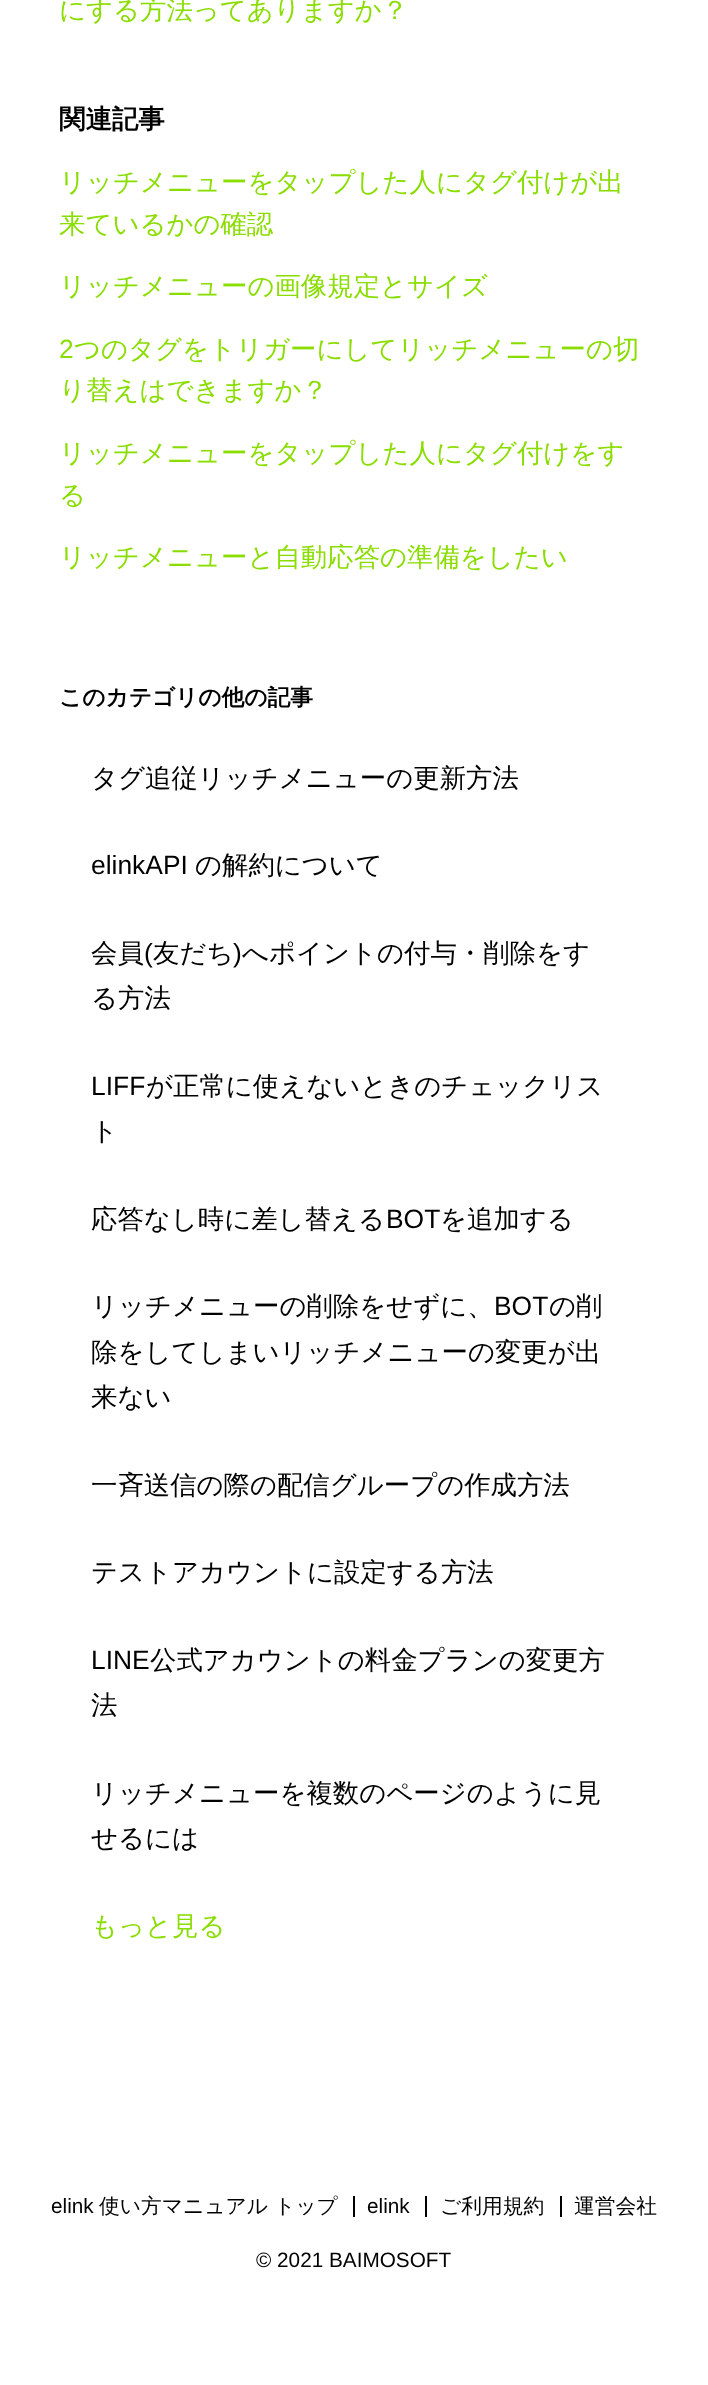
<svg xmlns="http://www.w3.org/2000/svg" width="708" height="2385">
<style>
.a{font:500 26.4px WenQuanYi Zen Hei;fill:#8add00}
.b{font:bold 26.4px WenQuanYi Zen Hei;fill:#000}
.c{font:26.4px Liberation Sans;fill:#8add00}
.d{font:bold 22.7px WenQuanYi Zen Hei;fill:#000}
.e{font:500 26.4px WenQuanYi Zen Hei;fill:#000}
.f{font:26.4px Liberation Sans;fill:#000}
.g{font:20.75px Liberation Sans;fill:#000}
.h{font:500 20.75px WenQuanYi Zen Hei;fill:#000}
</style>
<rect width="100%" height="100%" fill="#fff"/>
<path fill="#000" d="M353 2196h2v21H353z"/>
<path fill="#000" d="M425 2196h2v21H425z"/>
<path fill="#000" d="M560 2196h2v21H560z"/>
<text class="a" x="59" y="19">にする方法ってありますか？</text>
<text class="b" x="59" y="128">関連記事</text>
<text class="a" x="59" y="191">リッチメニューをタップした人にタグ付けが出</text>
<text class="a" x="59" y="233">来ているかの確認</text>
<text class="a" x="59" y="295">リッチメニューの画像規定とサイズ</text>
<text class="c" x="59" y="358">2</text>
<text class="a" x="74" y="358">つのタグをトリガーにしてリッチメニューの切</text>
<text class="a" x="59" y="399">り替えはできますか？</text>
<text class="a" x="59" y="462">リッチメニューをタップした人にタグ付けをす</text>
<text class="a" x="59" y="504">る</text>
<text class="a" x="59" y="566">リッチメニューと自動応答の準備をしたい</text>
<text class="d" x="59" y="705">このカテゴリの他の記事</text>
<text class="e" x="91" y="787">タグ追従リッチメニューの更新方法</text>
<text class="f" x="91" y="874">elinkAPI</text>
<text class="e" x="195" y="874">の解約について</text>
<text class="e" x="91" y="962">会員</text>
<text class="f" x="144" y="962">(</text>
<text class="e" x="153" y="962">友だち</text>
<text class="f" x="233" y="962">)</text>
<text class="e" x="242" y="962">へポイントの付与・削除をす</text>
<text class="e" x="91" y="1007">る方法</text>
<text class="f" x="91" y="1095">LIFF</text>
<text class="e" x="146" y="1095">が正常に使えないときのチェックリス</text>
<text class="e" x="91" y="1140">ト</text>
<text class="e" x="91" y="1228">応答なし時に差し替える</text>
<text class="f" x="386" y="1228">BOT</text>
<text class="e" x="440" y="1228">を追加する</text>
<text class="e" x="91" y="1315">リッチメニューの削除をせずに、</text>
<text class="f" x="494" y="1315">BOT</text>
<text class="e" x="549" y="1315">の削</text>
<text class="e" x="91" y="1361">除をしてしまいリッチメニューの変更が出</text>
<text class="e" x="91" y="1406">来ない</text>
<text class="e" x="91" y="1494">一斉送信の際の配信グループの作成方法</text>
<text class="e" x="91" y="1581">テストアカウントに設定する方法</text>
<text class="f" x="91" y="1669">LINE</text>
<text class="e" x="150" y="1669">公式アカウントの料金プランの変更方</text>
<text class="e" x="91" y="1714">法</text>
<text class="e" x="91" y="1802">リッチメニューを複数のページのように見</text>
<text class="e" x="91" y="1847">せるには</text>
<text class="a" x="91" y="1935">もっと見る</text>
<text class="g" x="51" y="2213">elink</text>
<text class="h" x="99" y="2213">使い方マニュアル トップ</text>
<text class="g" x="367" y="2213">elink</text>
<text class="h" x="440" y="2213">ご利用規約</text>
<text class="h" x="574" y="2213">運営会社</text>
<text class="g" x="256" y="2267">© 2021 BAIMOSOFT</text>
</svg>
